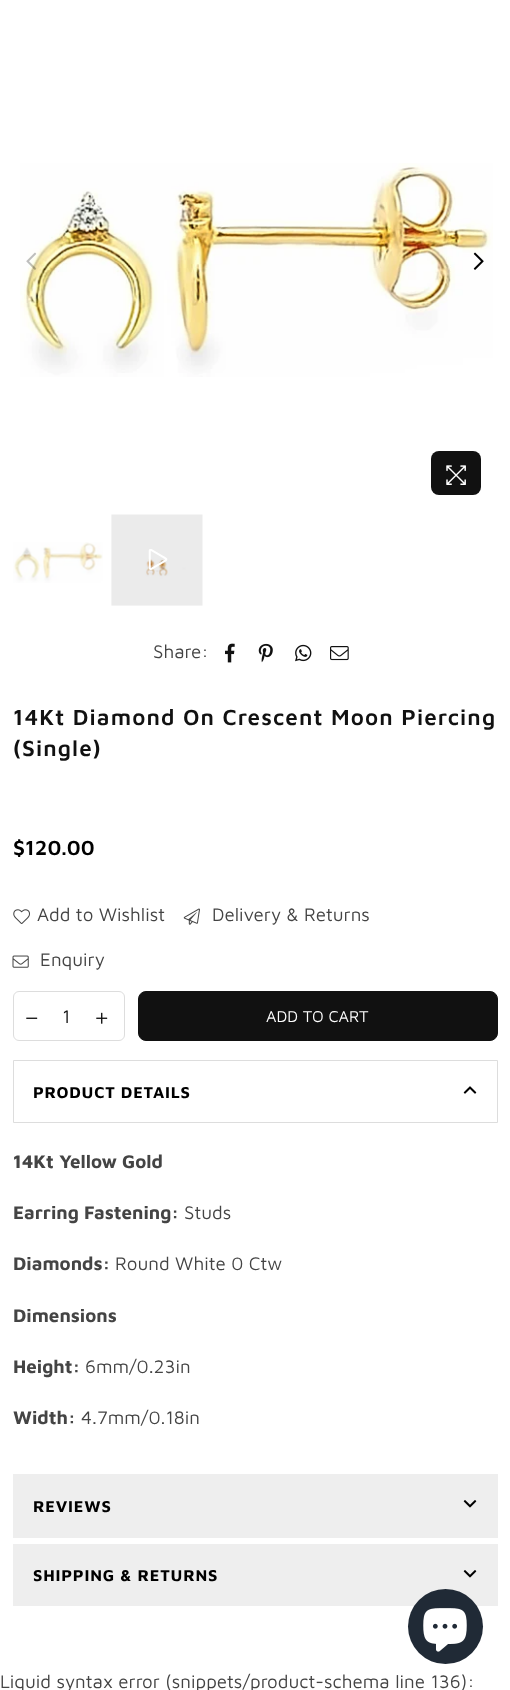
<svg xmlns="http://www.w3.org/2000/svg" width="510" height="1690">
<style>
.a{font:18.75px Maven Pro;fill:#444}
.b{font:600 22.5px Maven Pro;letter-spacing:1.1px;fill:#111}
.c{font:600 21px Maven Pro;fill:#000}
.d{font:18.75px Maven Pro;fill:#111}
.e{font:16.25px Maven Pro;fill:#fff}
.f{font:bold 16.25px Maven Pro;letter-spacing:0.8px;fill:#000}
.g{font:bold 18.75px Maven Pro;fill:#444}
</style>
<rect width="100%" height="100%" fill="#fff"/>
<image href="1.png" x="20" y="163" width="473" height="214"/>
<image href="2.png" x="26" y="252" width="11" height="18"/>
<image href="3.png" x="473" y="252" width="11" height="18"/>
<rect fill="#111" x="431" y="451" width="50" height="44" rx="8"/>
<image href="4.png" x="446" y="465" width="20" height="20"/>
<image href="5.png" x="13" y="542" width="90" height="41"/>
<image href="6.png" x="111" y="514" width="92" height="92"/>
<image href="7.png" x="148" y="549" width="20" height="21"/>
<image href="8.png" x="225" y="643" width="10" height="20"/>
<image href="9.png" x="258" y="643" width="15" height="20"/>
<image href="10.png" x="295" y="644" width="17" height="18"/>
<image href="11.png" x="330" y="646" width="19" height="15"/>
<image href="12.png" x="13" y="909" width="17" height="15"/>
<image href="13.png" x="183" y="908" width="17" height="17"/>
<image href="14.png" x="12" y="955" width="17" height="13"/>
<rect fill="none" stroke="#ddd" x="13.5" y="991.5" width="111" height="49" rx="5.5"/>
<image href="15.png" x="26" y="1017" width="12" height="2"/>
<image href="16.png" x="96" y="1012" width="12" height="12"/>
<rect fill="#111" stroke="#111" x="138.5" y="991.5" width="359" height="49" rx="7.5"/>
<path fill="none" stroke="#ddd" d="M13.5 1060.5h484v62H13.5z"/>
<image href="17.png" x="463" y="1086" width="14" height="8"/>
<path fill="#eee" d="M13 1474h485v64H13z"/>
<image href="18.png" x="463" y="1500" width="14" height="8"/>
<path fill="#eee" d="M13 1544h485v62H13z"/>
<image href="18.png" x="463" y="1570" width="14" height="8"/>
<circle fill="#202a36" cx="445.5" cy="1626.5" r="37.5"/>
<image href="19.png" x="423" y="1608" width="44" height="44"/>
<text class="a" x="153" y="658">Share:</text>
<text class="b" x="13" y="725">14Kt Diamond On Crescent Moon Piercing</text>
<text class="b" x="13" y="756">(Single)</text>
<text class="c" x="13" y="855">$120.00</text>
<text class="a" x="37" y="921">Add to Wishlist</text>
<text class="a" x="212" y="921">Delivery &amp; Returns</text>
<text class="a" x="40" y="966">Enquiry</text>
<text class="d" x="62" y="1023">1</text>
<text class="e" x="266" y="1022">ADD TO CART</text>
<text class="f" x="33" y="1098">PRODUCT DETAILS</text>
<text class="g" x="13" y="1168">14Kt Yellow Gold</text>
<text class="g" x="13" y="1219">Earring Fastening:</text>
<text class="a" x="184" y="1219">Studs</text>
<text class="g" x="13" y="1270">Diamonds:</text>
<text class="a" x="115" y="1270">Round White 0 Ctw</text>
<text class="g" x="13" y="1322">Dimensions</text>
<text class="g" x="13" y="1373">Height:</text>
<text class="a" x="85" y="1373">6mm/0.23in</text>
<text class="g" x="13" y="1424">Width:</text>
<text class="a" x="81" y="1424">4.7mm/0.18in</text>
<text class="f" x="33" y="1512">REVIEWS</text>
<text class="f" x="33" y="1581">SHIPPING &amp; RETURNS</text>
<text class="a" x="0" y="1688">Liquid syntax error (snippets/product-schema line 136):</text>
</svg>
